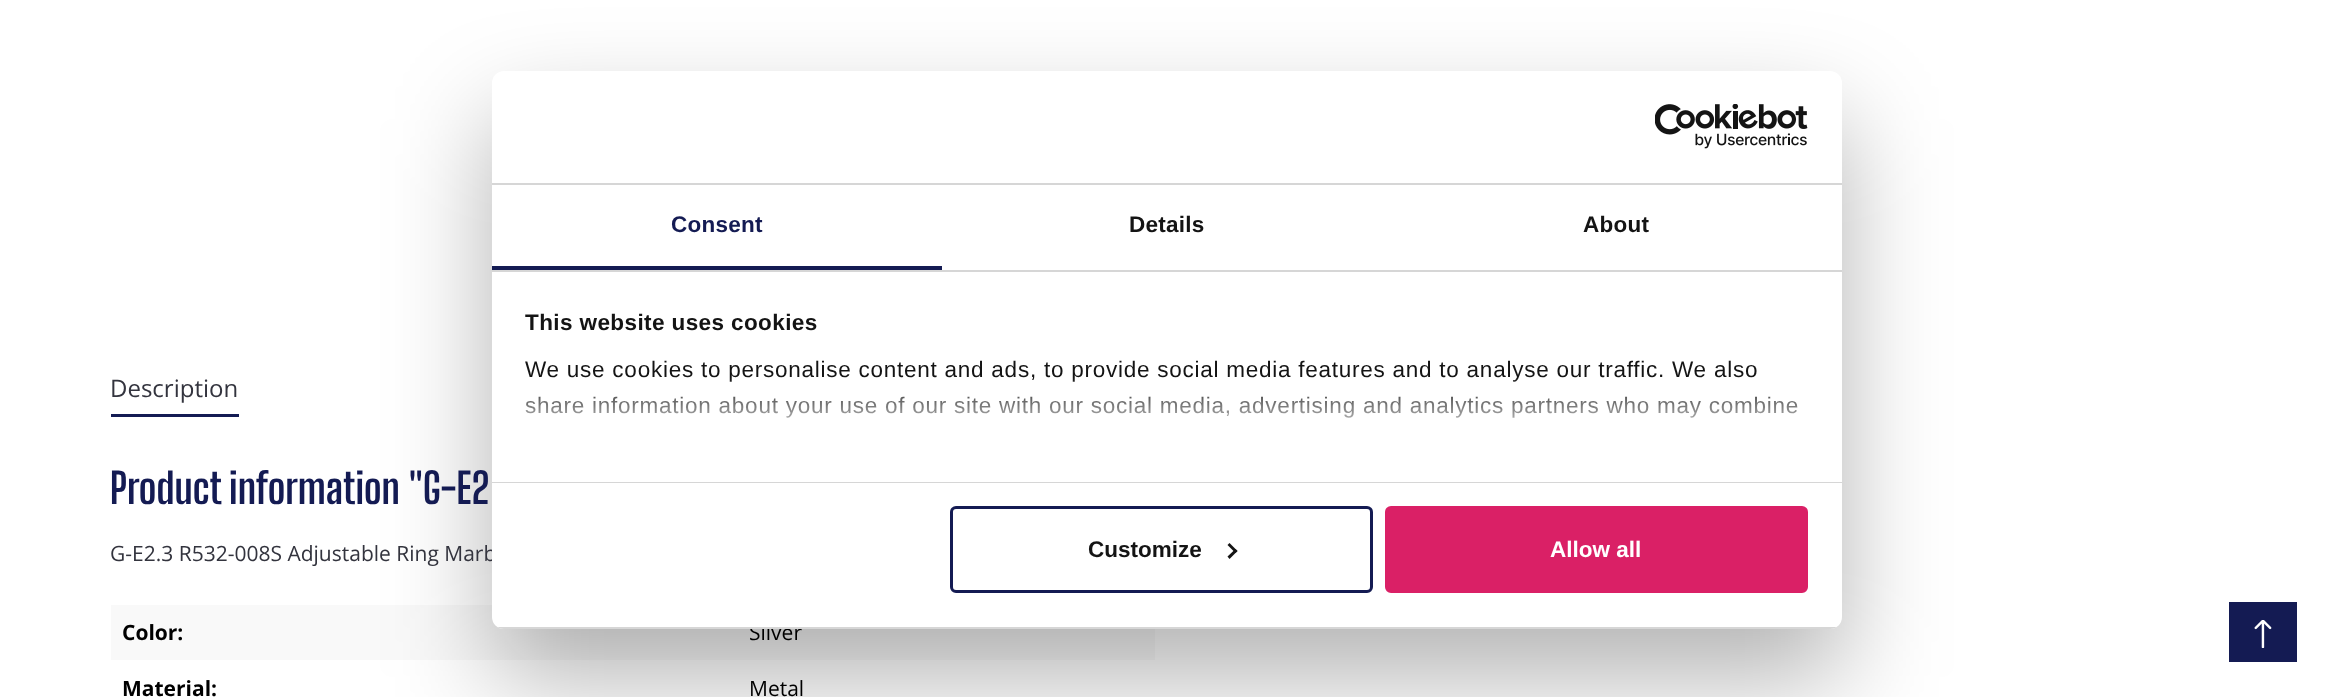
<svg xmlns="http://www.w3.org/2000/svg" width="2332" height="697">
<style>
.a{font:24px Open Sans;fill:#33343e}
.b{font:bold 42px Big Shoulders Display;fill:#141b53}
.c{font:21px Open Sans;fill:#33343e}
.d{font:bold 21px Open Sans;fill:#000}
.e{font:21px Open Sans;fill:#000}
.f{font:bold 22.5px Liberation Sans;letter-spacing:0.25px;fill:#141b53}
.g{font:bold 22.5px Liberation Sans;letter-spacing:0.25px;fill:#141414}
.h{font:bold 22.5px Liberation Sans;letter-spacing:0.4px;fill:#141414}
.i{font:22.5px Liberation Sans;letter-spacing:0.75px;fill:#141414}
.j{font:bold 22.5px Liberation Sans;fill:#141414}
.k{font:bold 22.5px Liberation Sans;fill:#fff}
</style>
<defs>
<linearGradient id="g1" gradientUnits="userSpaceOnUse" x1="1151" y1="482" x2="1151" y2="377"><stop offset="0" stop-color="#fff"/><stop offset="0.5" stop-color="#fff" stop-opacity="0.8"/><stop offset="1" stop-color="#fff" stop-opacity="0"/></linearGradient>
<clipPath id="clip1"><rect x="492" y="71" width="1350" height="558" rx="12"/></clipPath>
</defs>
<rect width="100%" height="100%" fill="#fff"/>
<path fill="#141b53" d="M111 414h128v3H111z"/>
<path fill="#f9f9f9" d="M111 605h627v55H111z"/>
<path fill="#f9f9f9" d="M738 629h417v31H738z"/>
<rect fill="#0000004d" filter="blur(51px)" x="492" y="119" width="1350" height="558" rx="12"/>
<path fill="#141b53" d="M2229 602h68v60H2229z"/>
<image href="2.png" x="2254" y="620" width="18" height="28"/>
<text class="a" x="110" y="397">Description</text>
<text class="b" x="110" y="504">Product information "G-E2</text>
<text class="c" x="110" y="561">G-E2.3 R532-008S Adjustable Ring Marb</text>
<text class="d" x="122" y="640">Color:</text>
<text class="e" x="749" y="640">Silver</text>
<text class="d" x="122" y="696">Material:</text>
<text class="e" x="749" y="696">Metal</text>
<rect fill="#fff" x="492" y="71" width="1350" height="558" rx="12"/>
<path fill="#d6d6d6" d="M492 183h1350v2H492z"/>
<image href="1.png" x="1655" y="104" width="153" height="45"/>
<path fill="#d6d6d6" d="M492 270h1350v2H492z"/>
<path fill="#141b53" d="M492 266h450v4H492z"/>
<text class="f" x="671" y="232">Consent</text>
<text class="g" x="1129" y="232">Details</text>
<text class="g" x="1583" y="232">About</text>
<path fill="#d6d6d6" d="M492 482h1350v1H492z"/>
<text class="h" x="525" y="330">This website uses cookies</text>
<text class="i" x="525" y="377">We use cookies to personalise content and ads, to provide social media features and to analyse our traffic. We also</text>
<text class="i" x="525" y="413">share information about your use of our site with our social media, advertising and analytics partners who may combine</text>
<path fill="url(#g1)" d="M525 378h1273v40H525z"/>
<g clip-path="url(#clip1)">
<path fill="#d6d6d6" d="M492 627h1350v2H492z"/>
</g>
<rect fill="none" stroke="#141b53" stroke-width="3" x="951.5" y="507.5" width="420" height="84" rx="4.5"/>
<text class="j" x="1088" y="557">Customize</text>
<path fill="#141414" d="M1229.5 543l8 8l-2 2l-8-8z"/>
<path fill="#141414" d="M1235.5 549l2 2l-8 8l-2-2.5z"/>
<rect fill="#da2066" stroke="#da2066" stroke-width="3" x="1386.5" y="507.5" width="420" height="84" rx="4.5"/>
<text class="k" x="1550" y="557">Allow all</text>
</svg>
